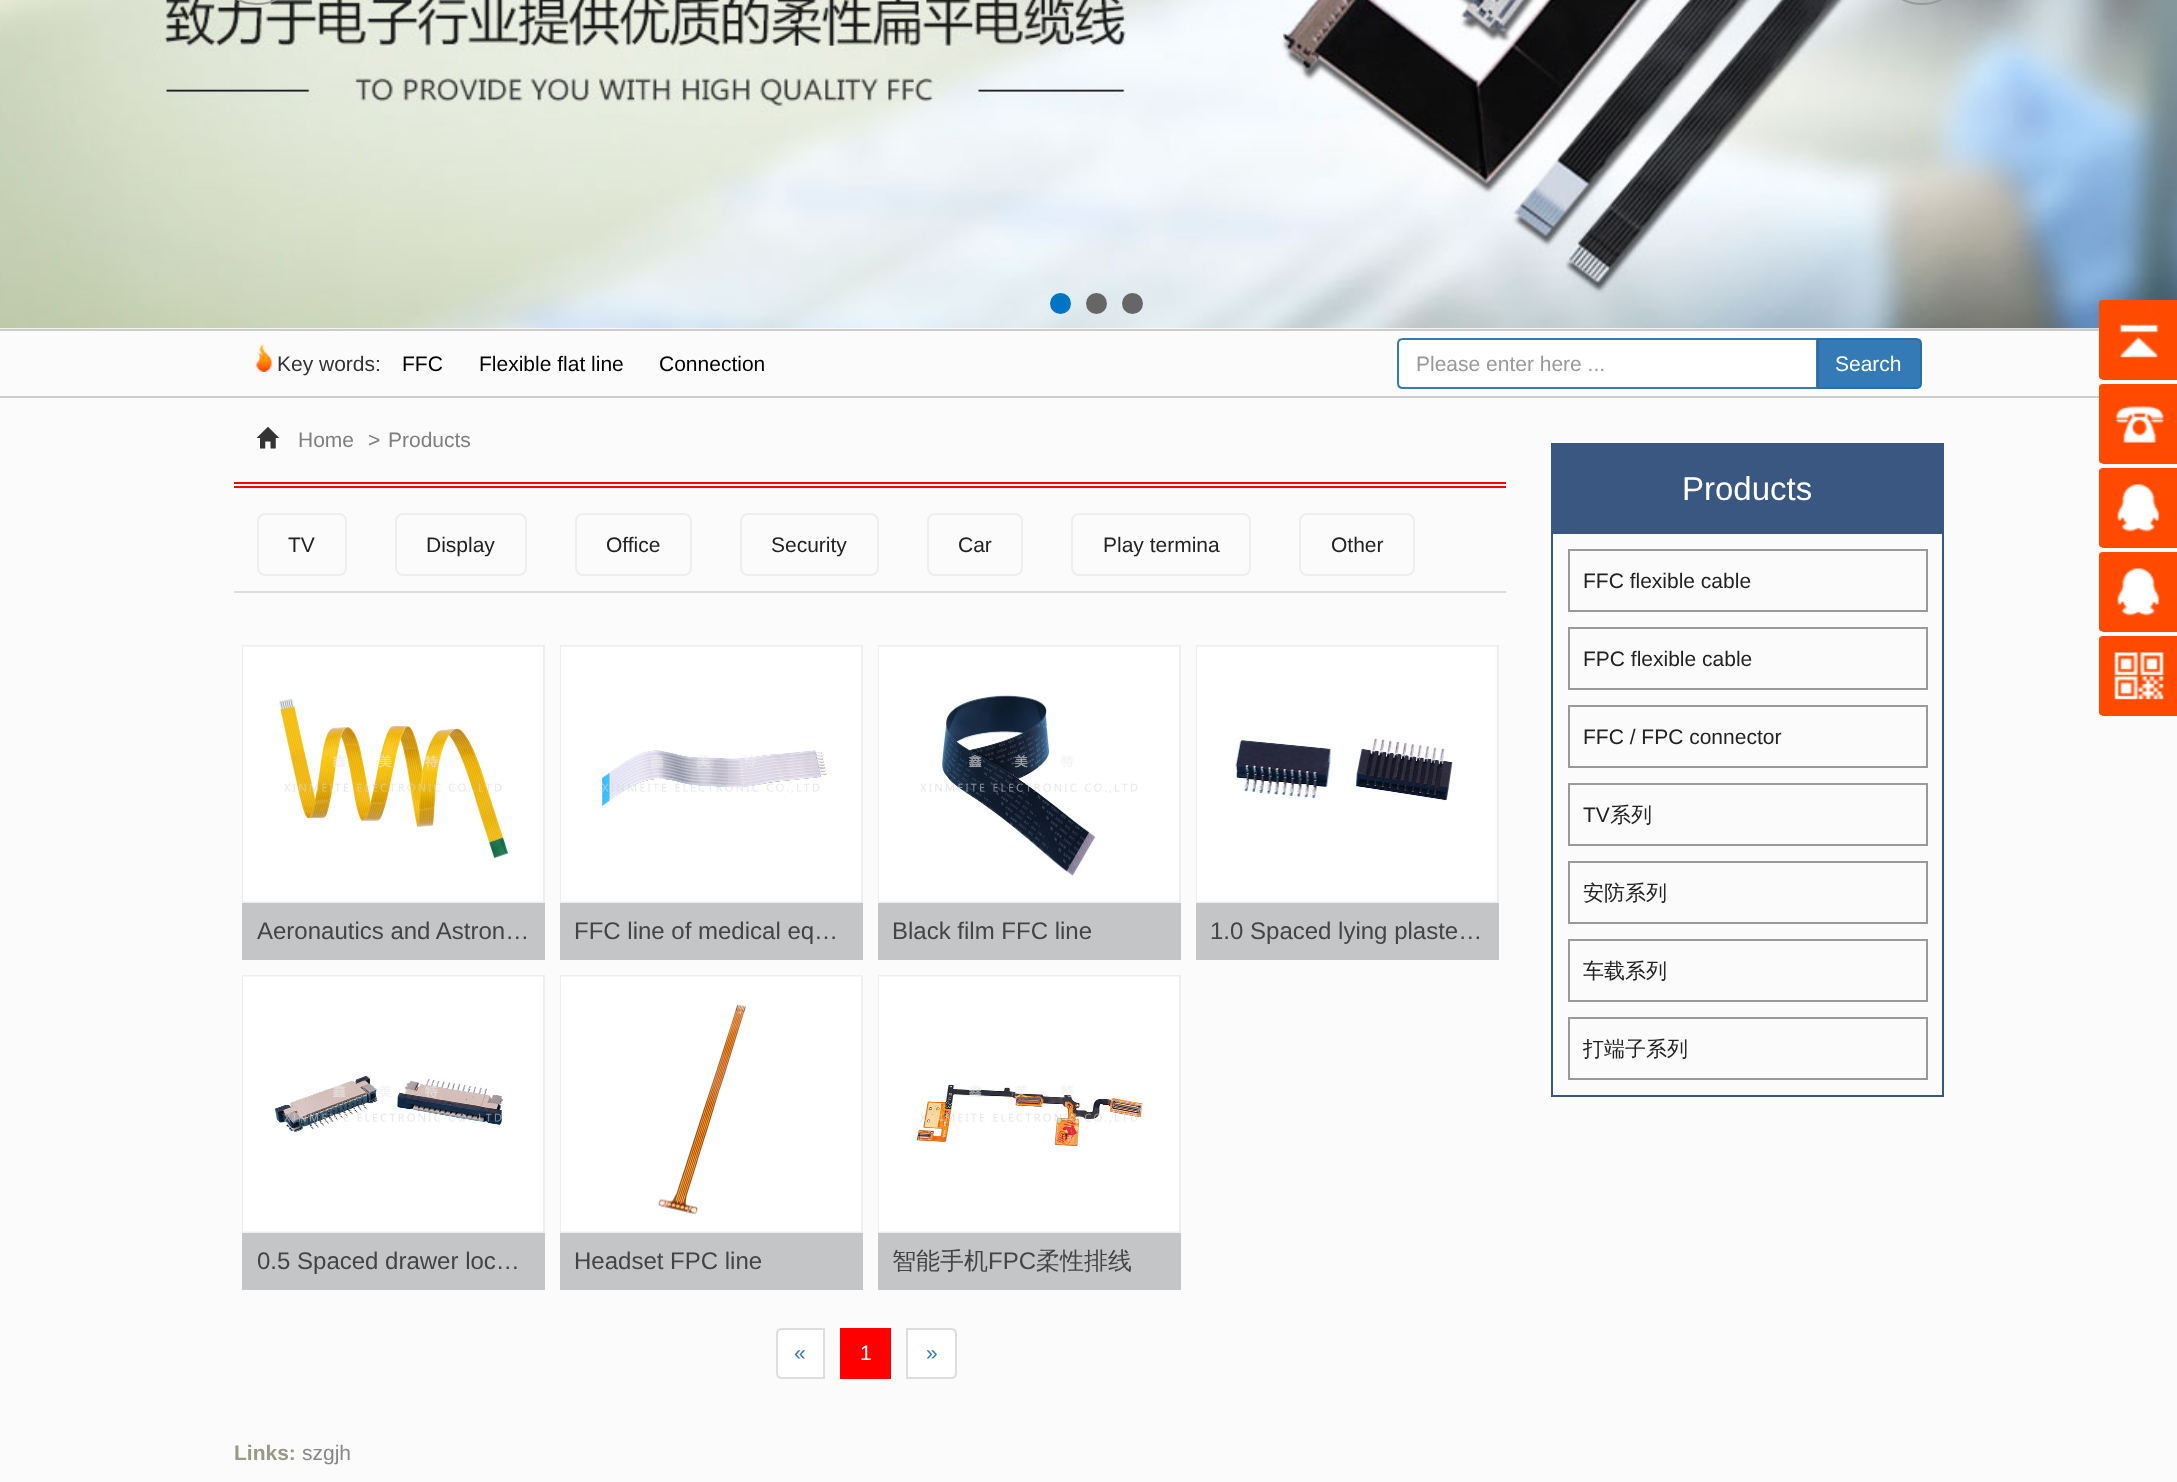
<svg xmlns="http://www.w3.org/2000/svg" width="2177" height="1482">
<style>
.a{font:21px Liberation Sans;fill:#333}
.b{font:21px Liberation Sans;fill:#000}
.c{font:21px Liberation Sans;fill:#999}
.d{font:21px Liberation Sans;fill:#fff}
.e{font:21px Liberation Sans;fill:#7f7f7f}
.f{font:21px Liberation Sans;fill:#222}
.g{font:24px Liberation Sans;fill:#444}
.h{font:500 24px WenQuanYi Zen Hei;fill:#444}
.i{font:21px Liberation Sans;fill:#337ab7}
.j{font:33px Liberation Sans;fill:#fff}
.k{font:500 21px WenQuanYi Zen Hei;fill:#222}
.l{font:bold 21px Liberation Sans;fill:#998}
.m{font:21px Liberation Sans;fill:#888}
</style>
<rect width="100%" height="100%" fill="#fff"/>
<image href="1.png" x="0" y="0" width="2177" height="329"/>
<rect fill="none" stroke="#999" stroke-width="2" x="228" y="-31" width="58" height="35" rx="29"/>
<rect fill="none" stroke="#999" stroke-width="2" x="1893" y="-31" width="58" height="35" rx="29"/>
<circle fill="#0075c5" cx="1060.5" cy="303.5" r="10.5"/>
<circle fill="#666" cx="1096.5" cy="303.5" r="10.5"/>
<circle fill="#666" cx="1132.5" cy="303.5" r="10.5"/>
<path fill="#fbfbfb" d="M0 331h2177v65H0z"/>
<path fill="#ccc" d="M0 329h2099v2H0z"/>
<path fill="#ccc" d="M0 396h2099v2H0z"/>
<image href="2.png" x="256" y="343" width="16" height="29"/>
<path fill="#fff" stroke="#337ab7" stroke-width="2" d="M1403 339h414v49h-414c-3 0-5-2-5-5v-39c0-3 2-5 5-5z"/>
<path fill="#337ab7" stroke="#2e6da4" stroke-width="2" d="M1818 339h98c3 0 5 2 5 5v39c0 3-2 5-5 5h-98z"/>
<rect fill="#ff4a00" x="2099" y="300" width="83" height="80" rx="5"/>
<image href="3.png" x="2099" y="300" width="65" height="80"/>
<path fill="#fbfbfb" d="M0 398h2177v1084H0z"/>
<rect fill="#ff4a00" x="2099" y="384" width="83" height="80" rx="5"/>
<image href="4.png" x="2099" y="384" width="65" height="80"/>
<rect fill="#ff4a00" x="2099" y="468" width="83" height="80" rx="5"/>
<image href="5.png" x="2099" y="468" width="61" height="80"/>
<rect fill="#ff4a00" x="2099" y="552" width="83" height="80" rx="5"/>
<image href="5.png" x="2099" y="552" width="61" height="80"/>
<rect fill="#ff4a00" x="2099" y="636" width="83" height="80" rx="5"/>
<image href="6.png" x="2099" y="636" width="65" height="80"/>
<path fill="#f00" d="M234 482h1272v2H234z"/>
<image href="7.png" x="256" y="427" width="23" height="22"/>
<path fill="#f00" d="M234 486h1272v2H234z"/>
<path fill="#ddd" d="M234 591h1272v2H234z"/>
<rect fill="none" stroke="#eee" stroke-width="2" x="258" y="514" width="88" height="61" rx="7"/>
<rect fill="none" stroke="#eee" stroke-width="2" x="396" y="514" width="130" height="61" rx="7"/>
<rect fill="none" stroke="#eee" stroke-width="2" x="576" y="514" width="115" height="61" rx="7"/>
<rect fill="none" stroke="#eee" stroke-width="2" x="741" y="514" width="137" height="61" rx="7"/>
<rect fill="none" stroke="#eee" stroke-width="2" x="928" y="514" width="94" height="61" rx="7"/>
<rect fill="none" stroke="#eee" stroke-width="2" x="1072" y="514" width="178" height="61" rx="7"/>
<rect fill="none" stroke="#eee" stroke-width="2" x="1300" y="514" width="114" height="61" rx="7"/>
<path fill="none" stroke="#eee" stroke-width="2" d="M243 646h301v256H243z"/>
<image href="8.png" x="243" y="646" width="300" height="256"/>
<path fill="#c4c5c6" d="M242 903h303v57H242z"/>
<path fill="none" stroke="#eee" stroke-width="2" d="M561 646h301v256H561z"/>
<image href="9.png" x="561" y="646" width="300" height="256"/>
<path fill="#c4c5c6" d="M560 903h303v57H560z"/>
<path fill="none" stroke="#eee" stroke-width="2" d="M879 646h301v256H879z"/>
<image href="10.png" x="879" y="646" width="300" height="256"/>
<path fill="#c4c5c6" d="M878 903h303v57H878z"/>
<path fill="none" stroke="#eee" stroke-width="2" d="M1197 646h301v256H1197z"/>
<image href="11.png" x="1197" y="646" width="299" height="256"/>
<path fill="#c4c5c6" d="M1196 903h303v57H1196z"/>
<path fill="none" stroke="#eee" stroke-width="2" d="M243 976h301v256H243z"/>
<image href="12.png" x="243" y="976" width="300" height="256"/>
<path fill="#c4c5c6" d="M242 1233h303v57H242z"/>
<path fill="none" stroke="#eee" stroke-width="2" d="M561 976h301v256H561z"/>
<image href="13.png" x="561" y="976" width="300" height="256"/>
<path fill="#c4c5c6" d="M560 1233h303v57H560z"/>
<path fill="none" stroke="#eee" stroke-width="2" d="M879 976h301v256H879z"/>
<image href="14.png" x="879" y="976" width="300" height="256"/>
<path fill="#c4c5c6" d="M878 1233h303v57H878z"/>
<path fill="#fff" stroke="#ddd" stroke-width="2" d="M782 1329h42v49h-42c-3 0-5-2-5-5v-39c0-3 2-5 5-5z"/>
<path fill="#f00" d="M840 1328h51v51H840z"/>
<path fill="#fff" stroke="#ddd" stroke-width="2" d="M907 1329h44c3 0 5 2 5 5v39c0 3-2 5-5 5h-44z"/>
<path fill="none" stroke="#395780" stroke-width="2" d="M1552 444h391v652H1552z"/>
<path fill="#395780" d="M1553 445h389v89H1553z"/>
<path fill="none" stroke="#999" stroke-width="2" d="M1569 550h358v61H1569z"/>
<path fill="none" stroke="#999" stroke-width="2" d="M1569 628h358v61H1569z"/>
<path fill="none" stroke="#999" stroke-width="2" d="M1569 706h358v61H1569z"/>
<path fill="none" stroke="#999" stroke-width="2" d="M1569 784h358v61H1569z"/>
<path fill="none" stroke="#999" stroke-width="2" d="M1569 862h358v61H1569z"/>
<path fill="none" stroke="#999" stroke-width="2" d="M1569 940h358v61H1569z"/>
<path fill="none" stroke="#999" stroke-width="2" d="M1569 1018h358v61H1569z"/>
<text class="a" x="277" y="371">Key words:</text>
<text class="b" x="402" y="371">FFC</text>
<text class="b" x="479" y="371">Flexible flat line</text>
<text class="b" x="659" y="371">Connection</text>
<text class="c" x="1416" y="371">Please enter here ...</text>
<text class="d" x="1835" y="371">Search</text>
<text class="e" x="298" y="447">Home</text>
<text class="e" x="368" y="447">&gt;</text>
<text class="e" x="388" y="447">Products</text>
<text class="f" x="288" y="552">TV</text>
<text class="f" x="426" y="552">Display</text>
<text class="f" x="606" y="552">Office</text>
<text class="f" x="771" y="552">Security</text>
<text class="f" x="958" y="552">Car</text>
<text class="f" x="1103" y="552">Play termina</text>
<text class="f" x="1331" y="552">Other</text>
<text class="g" x="257" y="939">Aeronautics and Astron…</text>
<text class="g" x="574" y="939">FFC line of medical eq…</text>
<text class="g" x="892" y="939">Black film FFC line</text>
<text class="g" x="1210" y="939">1.0 Spaced lying plaste…</text>
<text class="g" x="257" y="1269">0.5 Spaced drawer loc…</text>
<text class="g" x="574" y="1269">Headset FPC line</text>
<text class="h" x="892" y="1269">智能手机</text>
<text class="g" x="988" y="1269">FPC</text>
<text class="h" x="1036" y="1269">柔性排线</text>
<text class="i" x="794" y="1360">«</text>
<text class="d" x="860" y="1360">1</text>
<text class="i" x="926" y="1360">»</text>
<text class="j" x="1682" y="500">Products</text>
<text class="f" x="1583" y="588">FFC flexible cable</text>
<text class="f" x="1583" y="666">FPC flexible cable</text>
<text class="f" x="1583" y="744">FFC / FPC connector</text>
<text class="f" x="1583" y="822">TV</text>
<text class="k" x="1610" y="822">系列</text>
<text class="k" x="1583" y="900">安防系列</text>
<text class="k" x="1583" y="978">车载系列</text>
<text class="k" x="1583" y="1056">打端子系列</text>
<text class="l" x="234" y="1460">Links:</text>
<text class="m" x="302" y="1460">szgjh</text>
</svg>
